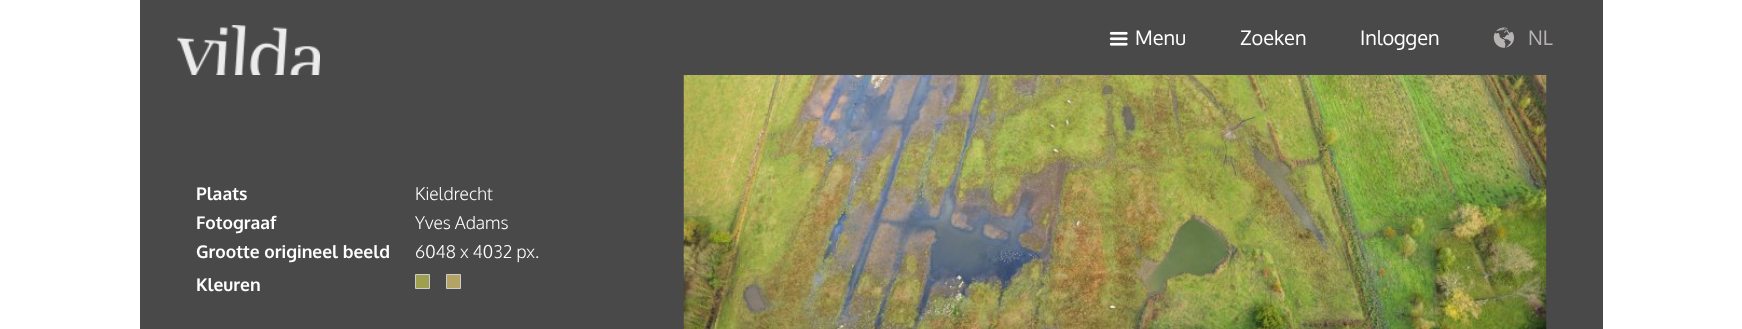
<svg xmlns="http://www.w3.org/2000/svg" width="1742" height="329">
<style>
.a{font:20px Oxygen;fill:#fff}
.b{font:20px Oxygen;fill:#b7b3b3}
.c{font:bold 17.5px Oxygen;fill:#fff}
.d{font:300 17.5px Oxygen;fill:#fff}
</style>
<rect width="100%" height="100%" fill="#fff"/>
<path fill="#494949" d="M140 0h1463v329H140z"/>
<image href="1.png" x="177" y="25" width="143" height="50"/>
<image href="2.png" x="1109" y="31" width="19" height="15"/>
<image href="3.png" x="1493" y="27" width="21" height="21"/>
<path fill="#9ea050" stroke="#ccc" d="M415.5 274.5h14v14H415.5z"/>
<path fill="#b3a364" stroke="#ccc" d="M446.5 274.5h14v14H446.5z"/>
<image href="4.png" x="683" y="75" width="864" height="254"/>
<text class="a" x="1135" y="45">Menu</text>
<text class="a" x="1240" y="45">Zoeken</text>
<text class="a" x="1360" y="45">Inloggen</text>
<text class="b" x="1528" y="45">NL</text>
<text class="c" x="196" y="200">Plaats</text>
<text class="d" x="415" y="200">Kieldrecht</text>
<text class="c" x="196" y="229">Fotograaf</text>
<text class="d" x="415" y="229">Yves Adams</text>
<text class="c" x="196" y="258">Grootte origineel beeld</text>
<text class="d" x="415" y="258">6048 x 4032 px.</text>
<text class="c" x="196" y="291">Kleuren</text>
</svg>
